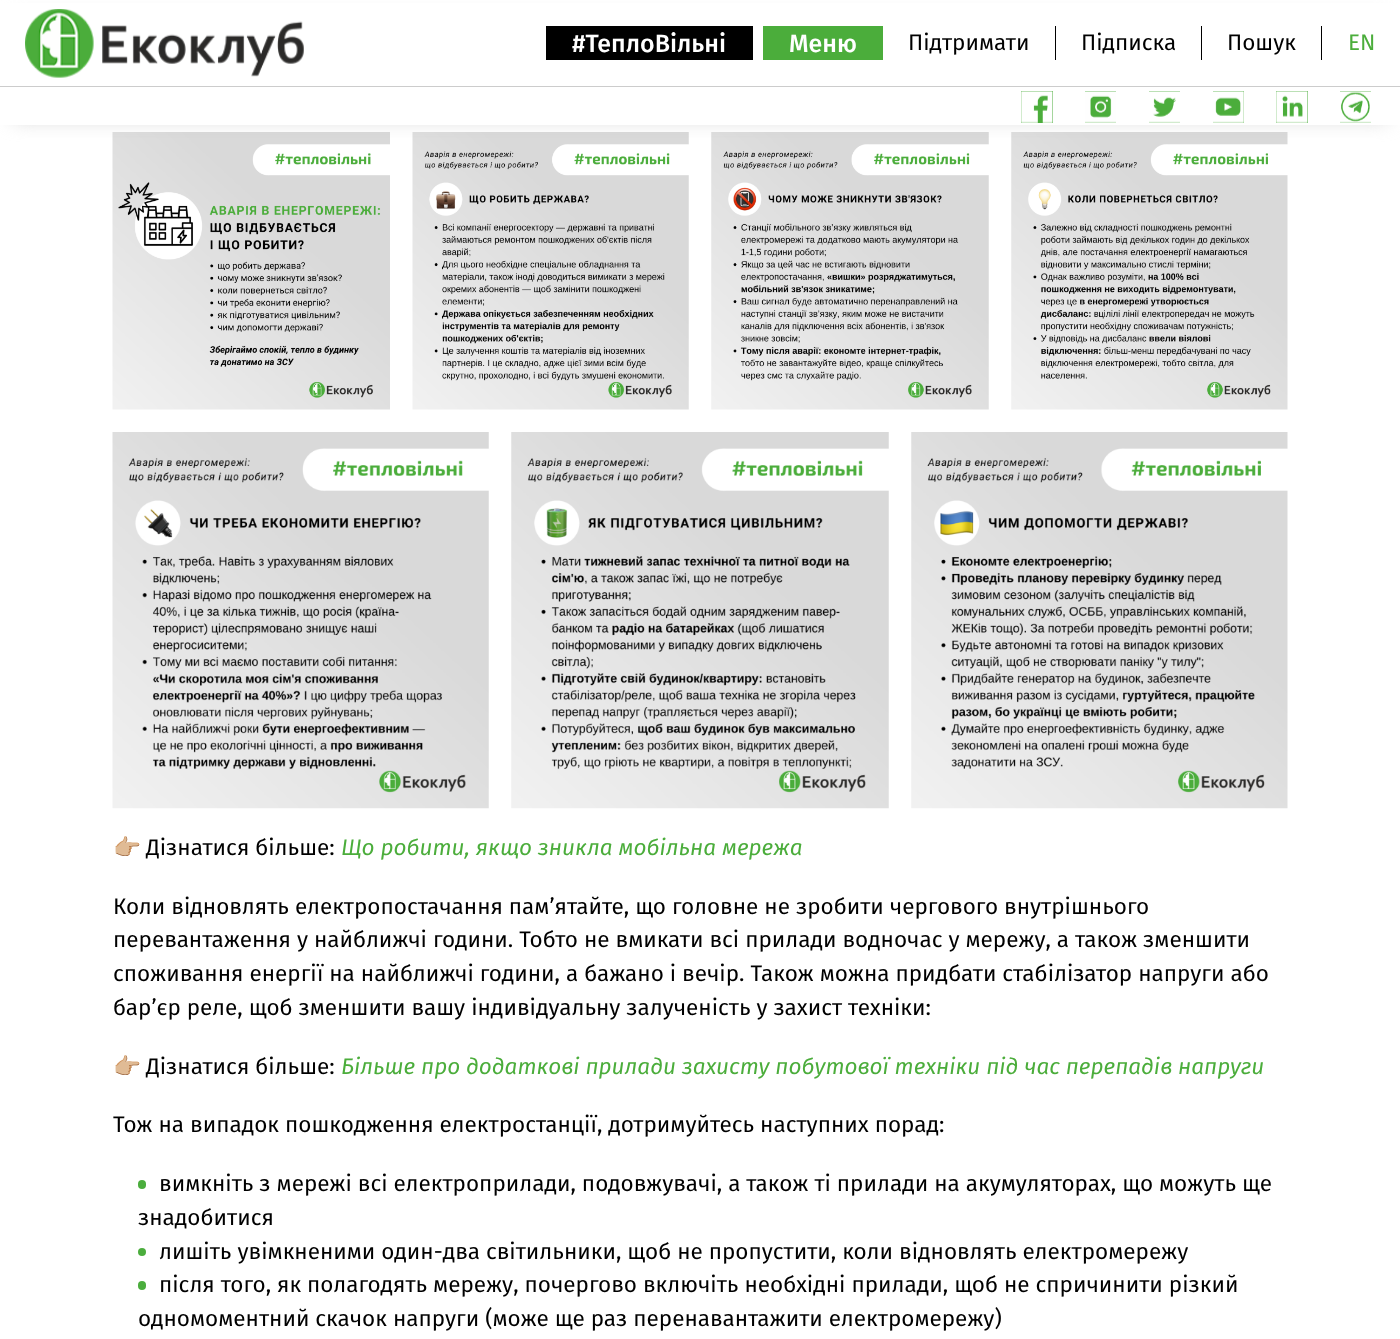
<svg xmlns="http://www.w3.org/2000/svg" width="1400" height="1339">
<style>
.a{font:500 25px Fira Sans;fill:#fff}
.b{font:22.5px Fira Sans;fill:#000}
.c{font:22.5px Fira Sans;fill:#4bad3b}
.d{font:22.5px Noto Color Emoji;fill:#000}
.e{font:italic 22.5px Fira Sans;fill:#4bad3b}
</style>
<rect width="100%" height="100%" fill="#fff"/>
<image href="8.png" x="112" y="132" width="278" height="278"/>
<image href="9.png" x="412" y="132" width="277" height="278"/>
<image href="10.png" x="711" y="132" width="278" height="278"/>
<image href="11.png" x="1011" y="132" width="277" height="278"/>
<path fill="#ccc" filter="blur(9.5px)" d="M13 19h1375v100H13z"/>
<path fill="#fff" d="M0 3h1400v122H0z"/>
<path fill="#ccc" d="M0 86h1400v1H0z"/>
<image href="1.png" x="25" y="9" width="279" height="69"/>
<path fill="#000" d="M546 26h207v34H546z"/>
<path fill="#4bad3b" d="M763 26h120v34H763z"/>
<path fill="#000" d="M1055 26h1v34H1055z"/>
<path fill="#000" d="M1201 26h1v34H1201z"/>
<path fill="#000" d="M1321 26h1v34H1321z"/>
<path fill="#4bad3b" d="M1021 91h32v32H1021z"/>
<image href="2.png" x="1021" y="91" width="32" height="32"/>
<path fill="#4bad3b" d="M1085 91h31v32H1085z"/>
<image href="3.png" x="1085" y="91" width="31" height="32"/>
<path fill="#4bad3b" d="M1149 91h31v32H1149z"/>
<image href="4.png" x="1149" y="91" width="31" height="32"/>
<path fill="#4bad3b" d="M1213 91h31v32H1213z"/>
<image href="5.png" x="1213" y="91" width="31" height="32"/>
<path fill="#4bad3b" d="M1276 91h32v32H1276z"/>
<image href="6.png" x="1276" y="91" width="32" height="32"/>
<path fill="#4bad3b" d="M1340 91h31v32H1340z"/>
<image href="7.png" x="1340" y="91" width="31" height="32"/>
<image href="12.png" x="112" y="432" width="377" height="377"/>
<image href="13.png" x="511" y="432" width="378" height="377"/>
<image href="14.png" x="911" y="432" width="377" height="377"/>
<rect fill="#4bad3d" x="138" y="1180" width="8" height="9" rx="4"/>
<circle fill="#4bad3d" cx="142" cy="1252" r="4"/>
<rect fill="#4bad3d" x="138" y="1281" width="8" height="9" rx="4"/>
<text class="a" x="572" y="52">#ТеплоВільні</text>
<text class="a" x="789" y="52">Меню</text>
<text class="b" x="908" y="50">Підтримати</text>
<text class="b" x="1081" y="50">Підписка</text>
<text class="b" x="1227" y="50">Пошук</text>
<text class="c" x="1348" y="50">EN</text>
<text class="d" x="113" y="855">👉🏼</text>
<text class="b" x="146" y="855">Дізнатися більше:</text>
<text class="e" x="341" y="855">Що робити, якщо зникла мобільна мережа</text>
<text class="b" x="113" y="914">Коли відновлять електропостачання пам’ятайте, що головне не зробити чергового внутрішнього</text>
<text class="b" x="113" y="947">перевантаження у найближчі години. Тобто не вмикати всі прилади водночас у мережу, а також зменшити</text>
<text class="b" x="113" y="981">споживання енергії на найближчі години, а бажано і вечір. Також можна придбати стабілізатор напруги або</text>
<text class="b" x="113" y="1015">бар’єр реле, щоб зменшити вашу індивідуальну залученість у захист техніки:</text>
<text class="d" x="113" y="1074">👉🏼</text>
<text class="b" x="146" y="1074">Дізнатися більше:</text>
<text class="e" x="341" y="1074">Більше про додаткові прилади захисту побутової техніки під час перепадів напруги</text>
<text class="b" x="113" y="1132">Тож на випадок пошкодження електростанції, дотримуйтесь наступних порад:</text>
<text class="b" x="159" y="1191">вимкніть з мережі всі електроприлади, подовжувачі, а також ті прилади на акумуляторах, що можуть ще</text>
<text class="b" x="138" y="1225">знадобитися</text>
<text class="b" x="159" y="1259">лишіть увімкненими один-два світильники, щоб не пропустити, коли відновлять електромережу</text>
<text class="b" x="159" y="1292">після того, як полагодять мережу, почергово включіть необхідні прилади, щоб не спричинити різкий</text>
<text class="b" x="138" y="1326">одномоментний скачок напруги (може ще раз перенавантажити електромережу)</text>
</svg>
